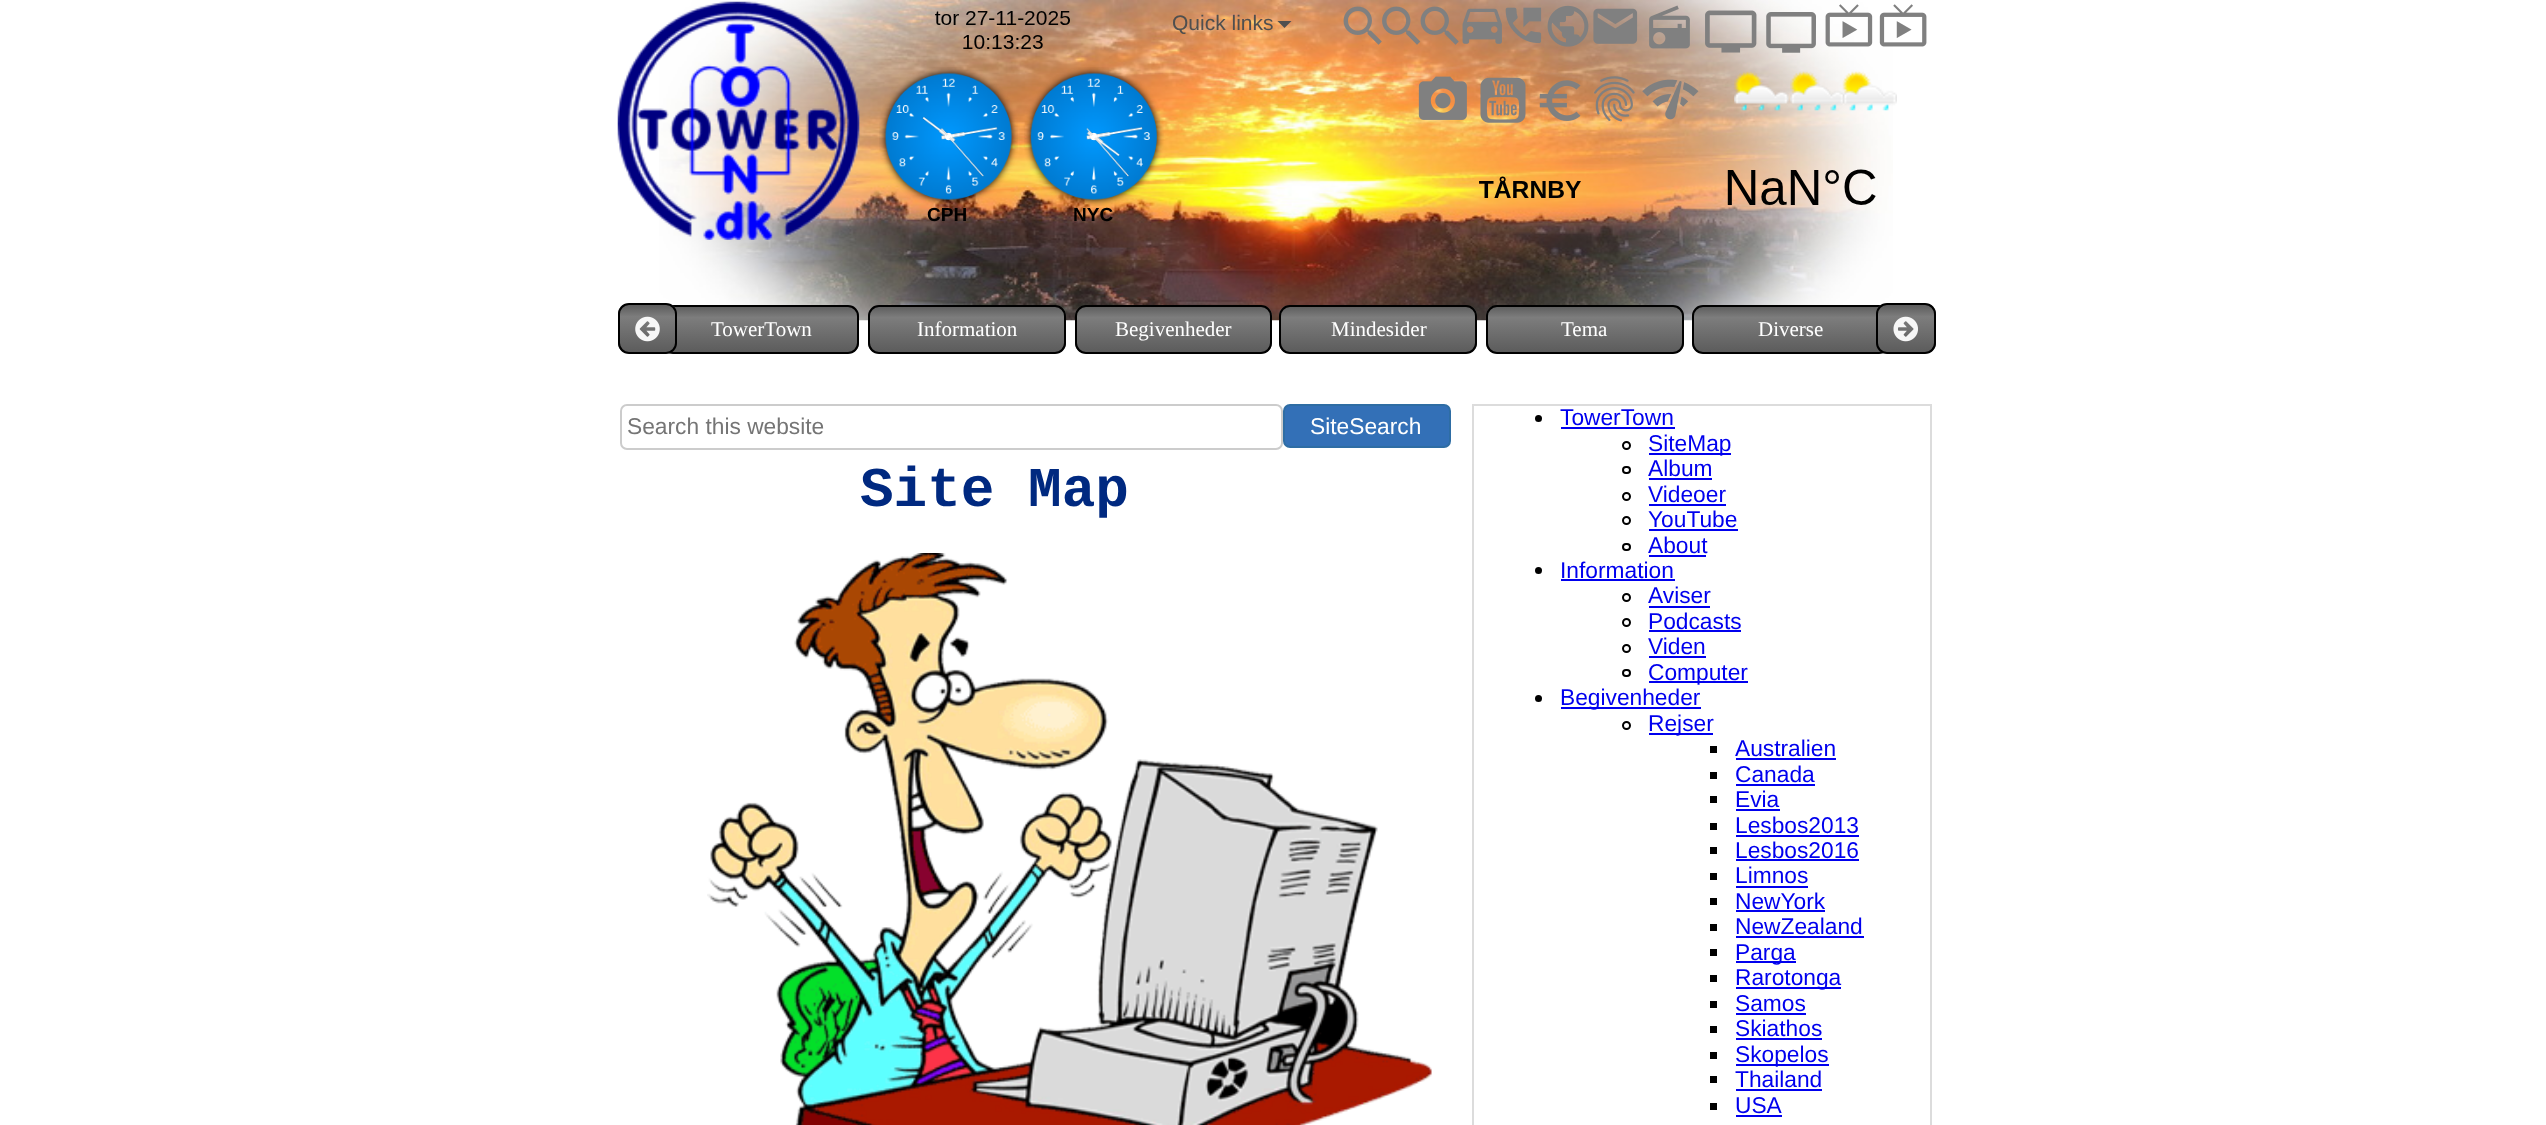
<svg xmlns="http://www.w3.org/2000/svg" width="2546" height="1125">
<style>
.a{font:21px Liberation Sans;fill:#4f4f4f}
.b{font:bold 19px Liberation Sans;fill:#000}
.c{font:21px Liberation Serif;fill:#fff}
.d{font:22.75px Liberation Sans;fill:#757575}
.e{font:22.75px Liberation Sans;fill:#fff}
.f{font:22.75px Liberation Sans;fill:#00e}
.g{font:bold 56px Liberation Mono;fill:#002980}
</style>
<defs>
<clipPath id="clip1"><rect x="662" y="305" width="197" height="49" rx="11"/></clipPath>
<linearGradient id="g1" gradientUnits="userSpaceOnUse" x1="760" y1="306" x2="760" y2="352"><stop offset="0" stop-color="#5c5c5c"/><stop offset="0.25" stop-color="#7d7d7d"/><stop offset="1" stop-color="#5c5c5c"/></linearGradient>
<clipPath id="clip2"><rect x="618" y="303" width="59" height="51" rx="11"/></clipPath>
<linearGradient id="g2" gradientUnits="userSpaceOnUse" x1="648" y1="305" x2="648" y2="352"><stop offset="0" stop-color="#5c5c5c"/><stop offset="0.25" stop-color="#7d7d7d"/><stop offset="1" stop-color="#5c5c5c"/></linearGradient>
<clipPath id="clip3"><rect x="868" y="305" width="198" height="49" rx="11"/></clipPath>
<linearGradient id="g3" gradientUnits="userSpaceOnUse" x1="967" y1="306" x2="967" y2="352"><stop offset="0" stop-color="#5c5c5c"/><stop offset="0.25" stop-color="#7d7d7d"/><stop offset="1" stop-color="#5c5c5c"/></linearGradient>
<clipPath id="clip4"><rect x="1075" y="305" width="197" height="49" rx="11"/></clipPath>
<linearGradient id="g4" gradientUnits="userSpaceOnUse" x1="1173" y1="306" x2="1173" y2="352"><stop offset="0" stop-color="#5c5c5c"/><stop offset="0.25" stop-color="#7d7d7d"/><stop offset="1" stop-color="#5c5c5c"/></linearGradient>
<clipPath id="clip5"><rect x="1279" y="305" width="198" height="49" rx="11"/></clipPath>
<linearGradient id="g5" gradientUnits="userSpaceOnUse" x1="1378" y1="306" x2="1378" y2="352"><stop offset="0" stop-color="#5c5c5c"/><stop offset="0.25" stop-color="#7d7d7d"/><stop offset="1" stop-color="#5c5c5c"/></linearGradient>
<clipPath id="clip6"><rect x="1486" y="305" width="198" height="49" rx="11"/></clipPath>
<linearGradient id="g6" gradientUnits="userSpaceOnUse" x1="1585" y1="306" x2="1585" y2="352"><stop offset="0" stop-color="#5c5c5c"/><stop offset="0.25" stop-color="#7d7d7d"/><stop offset="1" stop-color="#5c5c5c"/></linearGradient>
<clipPath id="clip7"><rect x="1692" y="305" width="198" height="49" rx="11"/></clipPath>
<linearGradient id="g7" gradientUnits="userSpaceOnUse" x1="1791" y1="306" x2="1791" y2="352"><stop offset="0" stop-color="#5c5c5c"/><stop offset="0.25" stop-color="#7d7d7d"/><stop offset="1" stop-color="#5c5c5c"/></linearGradient>
<clipPath id="clip8"><rect x="1876" y="303" width="60" height="51" rx="11"/></clipPath>
<linearGradient id="g8" gradientUnits="userSpaceOnUse" x1="1906" y1="305" x2="1906" y2="352"><stop offset="0" stop-color="#5c5c5c"/><stop offset="0.25" stop-color="#7d7d7d"/><stop offset="1" stop-color="#5c5c5c"/></linearGradient>
</defs>
<rect width="100%" height="100%" fill="#fff"/>
<image href="1.png" x="659" y="0" width="1234" height="321"/>
<image href="2.png" x="617" y="1" width="243" height="239"/>
<image href="3.png" x="935" y="11" width="135" height="38"/>
<path fill="#4f4f4f" d="M1277.5 21h14l-7 7z"/>
<image href="4.png" x="1343" y="6" width="39" height="39"/>
<image href="6.png" x="1420" y="6" width="39" height="39"/>
<image href="5.png" x="1382" y="6" width="39" height="39"/>
<image href="7.png" x="1462" y="8" width="40" height="36"/>
<image href="8.png" x="1505" y="7" width="37" height="36"/>
<image href="9.png" x="1547" y="5" width="42" height="42"/>
<image href="10.png" x="1593" y="8" width="45" height="36"/>
<image href="11.png" x="1649" y="5" width="41" height="44"/>
<image href="12.png" x="1705" y="10" width="52" height="43"/>
<image href="13.png" x="1766" y="12" width="50" height="41"/>
<image href="14.png" x="1825" y="4" width="48" height="43"/>
<image href="15.png" x="1879" y="4" width="48" height="43"/>
<image href="16.png" x="879" y="67" width="139" height="139"/>
<image href="17.png" x="1024" y="67" width="140" height="139"/>
<image href="18.png" x="1407" y="61" width="303" height="76"/>
<image href="19.png" x="1734" y="71" width="55" height="40"/>
<image href="20.png" x="1790" y="71" width="55" height="40"/>
<image href="21.png" x="1842" y="71" width="55" height="40"/>
<image href="22.png" x="1418" y="76" width="49" height="44"/>
<image href="23.png" x="1480" y="77" width="46" height="46"/>
<image href="24.png" x="1539" y="80" width="42" height="41"/>
<image href="25.png" x="1594" y="76" width="41" height="46"/>
<image href="26.png" x="1642" y="79" width="57" height="41"/>
<image href="27.png" x="1479" y="169" width="397" height="36"/>
<g clip-path="url(#clip1)">
<path fill="url(#g1)" d="M672 306h187v46H672z"/>
</g>
<rect fill="none" stroke="#000" stroke-width="2" x="663" y="306" width="195" height="47" rx="10"/>
<g clip-path="url(#clip2)">
<path fill="url(#g2)" d="M618 305h59v47H618z"/>
</g>
<rect fill="none" stroke="#000" stroke-width="2" x="619" y="304" width="57" height="49" rx="10"/>
<image href="28.png" x="635" y="316" width="25" height="26"/>
<g clip-path="url(#clip3)">
<path fill="url(#g3)" d="M868 306h198v46H868z"/>
</g>
<rect fill="none" stroke="#000" stroke-width="2" x="869" y="306" width="196" height="47" rx="10"/>
<g clip-path="url(#clip4)">
<path fill="url(#g4)" d="M1075 306h197v46H1075z"/>
</g>
<rect fill="none" stroke="#000" stroke-width="2" x="1076" y="306" width="195" height="47" rx="10"/>
<g clip-path="url(#clip5)">
<path fill="url(#g5)" d="M1279 306h198v46H1279z"/>
</g>
<rect fill="none" stroke="#000" stroke-width="2" x="1280" y="306" width="196" height="47" rx="10"/>
<g clip-path="url(#clip6)">
<path fill="url(#g6)" d="M1486 306h198v46H1486z"/>
</g>
<rect fill="none" stroke="#000" stroke-width="2" x="1487" y="306" width="196" height="47" rx="10"/>
<g clip-path="url(#clip7)">
<path fill="url(#g7)" d="M1692 306h189v46H1692z"/>
</g>
<rect fill="none" stroke="#000" stroke-width="2" x="1693" y="306" width="196" height="47" rx="10"/>
<g clip-path="url(#clip8)">
<path fill="url(#g8)" d="M1876 305h60v47H1876z"/>
</g>
<rect fill="none" stroke="#000" stroke-width="2" x="1877" y="304" width="58" height="49" rx="10"/>
<image href="29.png" x="1893" y="316" width="25" height="26"/>
<rect fill="none" stroke="#ccc" stroke-width="2" x="621" y="405" width="661" height="44" rx="6"/>
<rect fill="#3370b7" stroke="#2e6da4" stroke-width="2" x="1284" y="405" width="166" height="42" rx="6"/>
<path fill="none" stroke="#dcdcdc" stroke-width="2" d="M1473 405h458v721H1473z"/>
<circle fill="#000" cx="1538.5" cy="418.5" r="3.5"/>
<path fill="#00e" d="M1561 427h114v2H1561z"/>
<circle fill="none" stroke="#000" stroke-width="2" cx="1626.5" cy="445.5" r="3.5"/>
<path fill="#00e" d="M1649 453h82v2H1649z"/>
<rect fill="none" stroke="#000" stroke-width="2" x="1623" y="467" width="7" height="6" rx="3"/>
<path fill="#00e" d="M1649 478h63v2H1649z"/>
<circle fill="none" stroke="#000" stroke-width="2" cx="1626.5" cy="496.5" r="3.5"/>
<path fill="#00e" d="M1649 504h77v2H1649z"/>
<circle fill="none" stroke="#000" stroke-width="2" cx="1626.5" cy="520.5" r="3.5"/>
<path fill="#00e" d="M1649 529h89v2H1649z"/>
<rect fill="none" stroke="#000" stroke-width="2" x="1623" y="544" width="7" height="6" rx="3"/>
<path fill="#00e" d="M1649 555h57v2H1649z"/>
<circle fill="#000" cx="1538.5" cy="570.5" r="3.5"/>
<path fill="#00e" d="M1561 579h114v2H1561z"/>
<circle fill="none" stroke="#000" stroke-width="2" cx="1626.5" cy="597.5" r="3.5"/>
<path fill="#00e" d="M1649 606h61v2H1649z"/>
<circle fill="none" stroke="#000" stroke-width="2" cx="1626.5" cy="622.5" r="3.5"/>
<path fill="#00e" d="M1649 630h92v2H1649z"/>
<circle fill="none" stroke="#000" stroke-width="2" cx="1626.5" cy="648.5" r="3.5"/>
<path fill="#00e" d="M1649 656h57v2H1649z"/>
<rect fill="none" stroke="#000" stroke-width="2" x="1623" y="670" width="7" height="6" rx="3"/>
<path fill="#00e" d="M1649 681h99v2H1649z"/>
<circle fill="#000" cx="1538.5" cy="698.5" r="3.5"/>
<path fill="#00e" d="M1561 707h140v2H1561z"/>
<circle fill="none" stroke="#000" stroke-width="2" cx="1626.5" cy="725.5" r="3.5"/>
<path fill="#00e" d="M1649 733h64v2H1649z"/>
<path fill="#000" d="M1710 746h7v7H1710z"/>
<path fill="#00e" d="M1736 758h100v2H1736z"/>
<path fill="#000" d="M1710 772h7v7H1710z"/>
<path fill="#00e" d="M1736 784h79v2H1736z"/>
<path fill="#000" d="M1710 796h7v7H1710z"/>
<path fill="#00e" d="M1736 809h44v2H1736z"/>
<path fill="#000" d="M1710 823h7v7H1710z"/>
<path fill="#00e" d="M1736 835h123v2H1736z"/>
<path fill="#000" d="M1710 847h7v7H1710z"/>
<path fill="#00e" d="M1736 859h123v2H1736z"/>
<path fill="#000" d="M1710 873h7v7H1710z"/>
<path fill="#00e" d="M1736 886h72v2H1736z"/>
<path fill="#000" d="M1710 898h7v7H1710z"/>
<path fill="#00e" d="M1736 910h89v2H1736z"/>
<path fill="#000" d="M1710 924h7v7H1710z"/>
<path fill="#00e" d="M1736 936h128v2H1736z"/>
<path fill="#000" d="M1710 949h7v7H1710z"/>
<path fill="#00e" d="M1736 961h60v2H1736z"/>
<path fill="#000" d="M1710 975h7v7H1710z"/>
<path fill="#00e" d="M1736 987h105v2H1736z"/>
<path fill="#000" d="M1710 1001h7v7H1710z"/>
<path fill="#00e" d="M1736 1013h70v2H1736z"/>
<path fill="#000" d="M1710 1026h7v7H1710z"/>
<path fill="#00e" d="M1736 1038h86v2H1736z"/>
<path fill="#000" d="M1710 1052h7v7H1710z"/>
<path fill="#00e" d="M1736 1064h93v2H1736z"/>
<path fill="#000" d="M1710 1076h7v7H1710z"/>
<path fill="#00e" d="M1736 1089h86v2H1736z"/>
<path fill="#000" d="M1710 1103h7v7H1710z"/>
<path fill="#00e" d="M1736 1115h46v2H1736z"/>
<image href="30.png" x="707" y="553" width="725" height="572"/>
<text class="a" x="1172" y="30">Quick links</text>
<text class="b" x="927" y="221">CPH</text>
<text class="b" x="1073" y="221">NYC</text>
<text class="c" x="711" y="336">TowerTown</text>
<text class="c" x="917" y="336">Information</text>
<text class="c" x="1115" y="336">Begivenheder</text>
<text class="c" x="1331" y="336">Mindesider</text>
<text class="c" x="1561" y="336">Tema</text>
<text class="c" x="1758" y="336">Diverse</text>
<text class="d" x="627" y="434">Search this website</text>
<text class="e" x="1310" y="434">SiteSearch</text>
<text class="f" x="1560" y="425">TowerTown</text>
<text class="f" x="1648" y="451">SiteMap</text>
<text class="f" x="1648" y="476">Album</text>
<text class="f" x="1648" y="502">Videoer</text>
<text class="f" x="1648" y="527">YouTube</text>
<text class="f" x="1648" y="553">About</text>
<text class="f" x="1560" y="578">Information</text>
<text class="f" x="1648" y="603">Aviser</text>
<text class="f" x="1648" y="629">Podcasts</text>
<text class="f" x="1648" y="654">Viden</text>
<text class="f" x="1648" y="680">Computer</text>
<text class="f" x="1560" y="705">Begivenheder</text>
<text class="f" x="1648" y="731">Rejser</text>
<text class="f" x="1735" y="756">Australien</text>
<text class="f" x="1735" y="782">Canada</text>
<text class="f" x="1735" y="807">Evia</text>
<text class="f" x="1735" y="833">Lesbos2013</text>
<text class="f" x="1735" y="858">Lesbos2016</text>
<text class="f" x="1735" y="883">Limnos</text>
<text class="f" x="1735" y="909">NewYork</text>
<text class="f" x="1735" y="934">NewZealand</text>
<text class="f" x="1735" y="960">Parga</text>
<text class="f" x="1735" y="985">Rarotonga</text>
<text class="f" x="1735" y="1011">Samos</text>
<text class="f" x="1735" y="1036">Skiathos</text>
<text class="f" x="1735" y="1062">Skopelos</text>
<text class="f" x="1735" y="1087">Thailand</text>
<text class="f" x="1735" y="1113">USA</text>
<text class="g" x="860" y="506">Site Map</text>
</svg>
